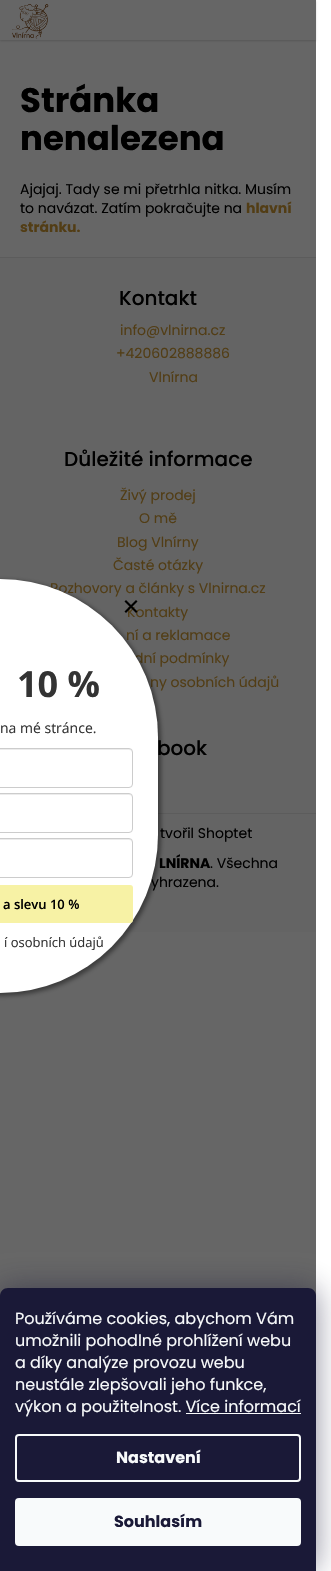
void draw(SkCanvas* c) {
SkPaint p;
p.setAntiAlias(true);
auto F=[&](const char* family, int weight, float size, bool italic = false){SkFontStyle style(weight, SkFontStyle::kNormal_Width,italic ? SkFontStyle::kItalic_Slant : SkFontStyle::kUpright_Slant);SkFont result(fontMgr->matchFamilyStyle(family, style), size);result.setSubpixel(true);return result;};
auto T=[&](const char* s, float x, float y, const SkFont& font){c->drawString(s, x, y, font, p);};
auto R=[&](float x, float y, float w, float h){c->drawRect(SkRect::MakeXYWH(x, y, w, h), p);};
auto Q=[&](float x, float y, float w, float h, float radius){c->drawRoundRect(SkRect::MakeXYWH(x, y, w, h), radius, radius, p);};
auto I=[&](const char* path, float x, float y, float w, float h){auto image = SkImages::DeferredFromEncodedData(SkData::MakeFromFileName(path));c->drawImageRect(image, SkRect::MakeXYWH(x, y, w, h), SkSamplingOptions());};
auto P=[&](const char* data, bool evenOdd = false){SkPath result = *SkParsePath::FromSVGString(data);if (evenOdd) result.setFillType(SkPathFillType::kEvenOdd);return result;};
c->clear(0xffffffff);
p.setColor(0x29000000);
p.setMaskFilter(SkMaskFilter::MakeBlur(kNormal_SkBlurStyle, 1));
c->drawRect(SkRect::MakeXYWH(0,1,316,40),p);
p.setMaskFilter(nullptr);
p.setColor(0xffffffff);
R(0,0,316,40);
I("1.png",12,4,37,35);
auto f1 = F("Poppins",700,34);
p.setColor(0xff000000);
T("Stránka",20,112,f1);
T("nenalezena",20,150,f1);
auto f2 = F("Poppins",400,14);
T("Ajajaj. Tady se mi přetrhla nitka. Musím",20,194,f2);
T("to navázat. Zatím pokračujte na",20,213,f2);
auto f3 = F("Poppins",700,14);
p.setColor(0xffcd9934);
T("hlavní",246,213,f3);
T("stránku.",20,232,f3);
p.setColor(0xfff9f9f9);
R(0,258,316,674);
p.setColor(0xffe6e6e6);
R(0,257,316,1);
auto f4 = F("Poppins",500,20);
p.setColor(0xff000000);
T("Kontakt",119,305,f4);
p.setColor(0xffcd9934);
T("info@vlnirna.cz",120,335,f2);
T("+420602888886",116,358,f2);
T("Vlnírna",149,382,f2);
p.setColor(0xff000000);
T("Důležité informace",64,466,f4);
p.setColor(0xffcd9934);
T("Živý prodej",120,500,f2);
T("O mě",139,523,f2);
T("Blog Vlnírny",117,547,f2);
T("Časté otázky",113,570,f2);
T("Rozhovory a články s Vlnirna.cz",50,593,f2);
T("Kontakty",127,617,f2);
T("ní a reklamace",126,640,f2);
T("dní podmínky",134,663,f2);
T("ny osobních údajů",150,687,f2);
p.setColor(0xff000000);
T("book",157,755,f4);
p.setColor(0xffe6e6e6);
R(158,813,158,1);
p.setColor(0xff000000);
T("tvořil Shoptet",160,838,f2);
T("LNÍRNA",159,868,f3);
T(". Všechna",210,868,f2);
T("yhrazena.",151,887,f2);
p.setColor(0x99000000);
R(0,0,316,1296);
p.setColor(0x69000000);
p.setMaskFilter(SkMaskFilter::MakeBlur(kNormal_SkBlurStyle, 2));
c->drawRoundRect(SkRect::MakeXYWH(-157,580,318,416),159,159,p);
p.setMaskFilter(nullptr);
p.setColor(0xffffffff);
Q(-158,579,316,414,158);
p.setColor(0xff000000);
c->drawPath(P("M136 600l1.5 1.5l-11.5 11.5l-1.5-1.5z"),p);
c->drawPath(P("M124.5 601.5l1.5-1.5l11.5 11.5l-1.5 1.5z"),p);
auto f5 = F("Open Sans",700,36);
p.setColor(0xff333333);
T("10 %",17,697,f5);
auto f6 = F("Open Sans",400,14);
T("na mé stránce.",0,733,f6);
p.setColor(0xffececec);
c->drawPath(P("M-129 750h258c2 0 3 1 3 3v-1c0-2-1-3-3-3h-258c-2 0-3 1-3 3v1c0-2 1-3 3-3z"),p);
p.setStroke(true);
p.setStrokeWidth(1);
p.setColor(0xffcccccc);
c->drawRoundRect(SkRect::MakeXYWH(-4.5,748.5,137,39),3.5,3.5,p);
p.setStroke(false);
p.setColor(0xffececec);
c->drawPath(P("M-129 795h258c2 0 3 1 3 3v-1c0-2-1-3-3-3h-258c-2 0-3 1-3 3v1c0-2 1-3 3-3z"),p);
p.setStroke(true);
p.setColor(0xffcccccc);
c->drawRoundRect(SkRect::MakeXYWH(-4.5,793.5,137,39),3.5,3.5,p);
p.setStroke(false);
p.setColor(0xffececec);
c->drawPath(P("M-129 840h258c2 0 3 1 3 3v-1c0-2-1-3-3-3h-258c-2 0-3 1-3 3v1c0-2 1-3 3-3z"),p);
p.setStroke(true);
p.setColor(0xffcccccc);
c->drawRoundRect(SkRect::MakeXYWH(-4.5,838.5,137,39),3.5,3.5,p);
p.setStroke(false);
p.setColor(0xfff7f2a5);
Q(-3,885,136,38,3);
auto f7 = F("Open Sans",600,13);
p.setColor(0xff000000);
T("a slevu 10 %",3,909,f7);
auto f8 = F("Open Sans",400,13);
p.setColor(0xff333333);
T("í osobních údajů",4,947,f8);
p.setColor(0x801b1939);
p.setMaskFilter(SkMaskFilter::MakeBlur(kNormal_SkBlurStyle, 15));
c->drawRoundRect(SkRect::MakeXYWH(0,1288,316,283),8,8,p);
p.setMaskFilter(nullptr);
p.setColor(0xff1a1937);
c->drawPath(P("M8 1288h300c4.5 0 8 3.5 8 8v275h-316v-275c0-4.5 3.5-8 8-8z"),p);
auto f9 = F("Poppins",400,16);
p.setColor(0xfff8fafb);
T("Používáme cookies, abychom Vám",15,1324,f9);
T("umožnili pohodlné prohlížení webu",15,1346,f9);
T("a díky analýze provozu webu",15,1368,f9);
T("neustále zlepšovali jeho funkce,",15,1390,f9);
T("výkon a použitelnost. Více informací",15,1412,f9);
R(186,1413,115,1);
p.setStroke(true);
p.setStrokeWidth(2);
c->drawRoundRect(SkRect::MakeXYWH(16,1435,284,46),3,3,p);
auto f10 = F("Poppins",700,16);
p.setStroke(false);
T("Nastavení",116,1463,f10);
Q(15,1498,286,48,4);
p.setColor(0xff1a1937);
T("Souhlasím",114,1527,f10);
}
